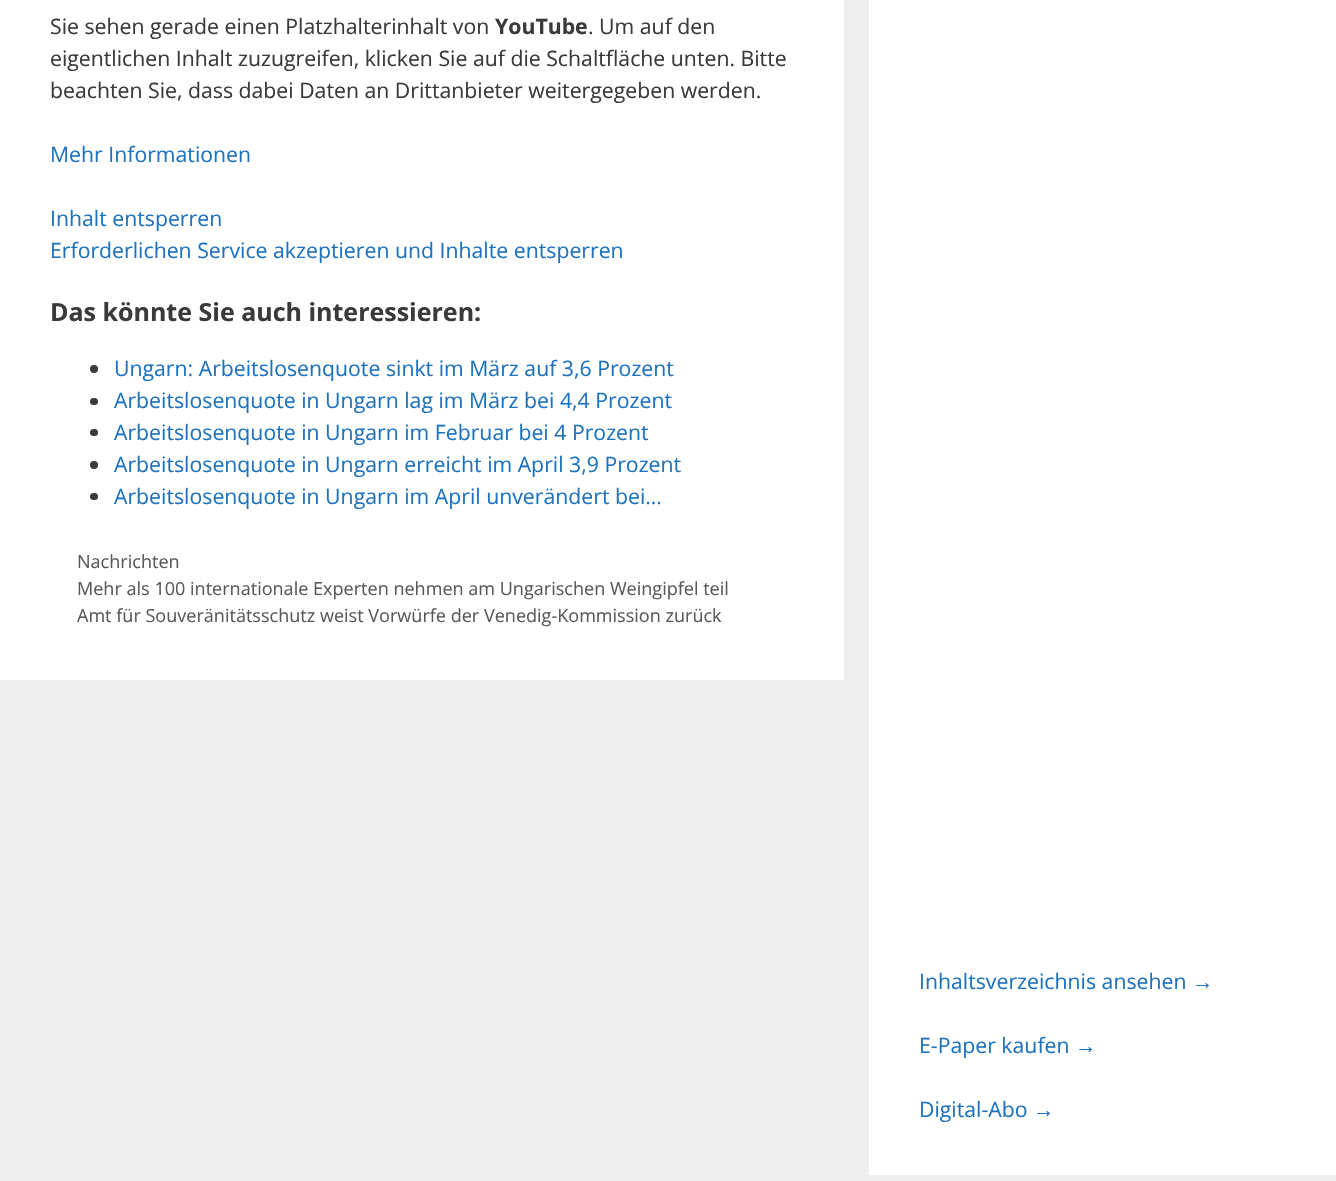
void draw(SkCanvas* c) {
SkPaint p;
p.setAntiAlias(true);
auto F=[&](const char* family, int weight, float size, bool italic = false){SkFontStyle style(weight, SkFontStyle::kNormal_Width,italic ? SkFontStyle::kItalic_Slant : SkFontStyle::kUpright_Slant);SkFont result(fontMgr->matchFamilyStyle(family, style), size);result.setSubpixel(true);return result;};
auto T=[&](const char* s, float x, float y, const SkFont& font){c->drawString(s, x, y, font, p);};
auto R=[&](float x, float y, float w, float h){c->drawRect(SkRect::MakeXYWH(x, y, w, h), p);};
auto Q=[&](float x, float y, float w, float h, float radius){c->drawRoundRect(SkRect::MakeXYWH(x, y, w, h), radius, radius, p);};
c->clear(0xffefefef);
p.setColor(0xffffffff);
R(0,0,844,680);
auto f1 = F("Open Sans",400,21.25);
p.setColor(0xff3a3a3a);
T("Sie sehen gerade einen Platzhalterinhalt von",50,34,f1);
auto f2 = F("Open Sans",700,21.25);
T("YouTube",495,34,f2);
T(". Um auf den",588,34,f1);
T("eigentlichen Inhalt zuzugreifen, klicken Sie auf die Schaltfläche unten. Bitte",50,66,f1);
T("beachten Sie, dass dabei Daten an Drittanbieter weitergegeben werden.",50,98,f1);
p.setColor(0xff1e73be);
T("Mehr Informationen",50,162,f1);
T("Inhalt entsperren",50,226,f1);
T("Erforderlichen Service akzeptieren und Inhalte entsperren",50,258,f1);
auto f3 = F("Open Sans",700,25);
p.setColor(0xff3a3a3a);
T("Das könnte Sie auch interessieren:",50,321,f3);
c->drawCircle(94,369,4,p);
p.setColor(0xff1e73be);
T("Ungarn: Arbeitslosenquote sinkt im März auf 3,6 Prozent",114,376,f1);
p.setColor(0xff3a3a3a);
Q(90,398,8,7,3.5);
p.setColor(0xff1e73be);
T("Arbeitslosenquote in Ungarn lag im März bei 4,4 Prozent",114,408,f1);
p.setColor(0xff3a3a3a);
Q(90,429,8,7,3.5);
p.setColor(0xff1e73be);
T("Arbeitslosenquote in Ungarn im Februar bei 4 Prozent",114,440,f1);
p.setColor(0xff3a3a3a);
c->drawCircle(94,465,4,p);
p.setColor(0xff1e73be);
T("Arbeitslosenquote in Ungarn erreicht im April 3,9 Prozent",114,472,f1);
p.setColor(0xff3a3a3a);
Q(90,493,8,7,3.5);
p.setColor(0xff1e73be);
T("Arbeitslosenquote in Ungarn im April unverändert bei…",114,504,f1);
auto f4 = F("Open Sans",400,18.05);
p.setColor(0xff595959);
T("Nachrichten",77,568,f4);
T("Mehr als 100 internationale Experten nehmen am Ungarischen Weingipfel teil",77,595,f4);
T("Amt für Souveränitätsschutz weist Vorwürfe der Venedig-Kommission zurück",77,622,f4);
p.setColor(0xffffffff);
R(869,0,467,1175);
p.setColor(0xff1e73be);
T("Inhaltsverzeichnis ansehen",919,989,f1);
auto f5 = F("Liberation Serif",400,21.25);
T("→",1192,989,f5);
T("E-Paper kaufen",919,1053,f1);
T("→",1075,1053,f5);
T("Digital-Abo",919,1117,f1);
T("→",1033,1117,f5);
}
